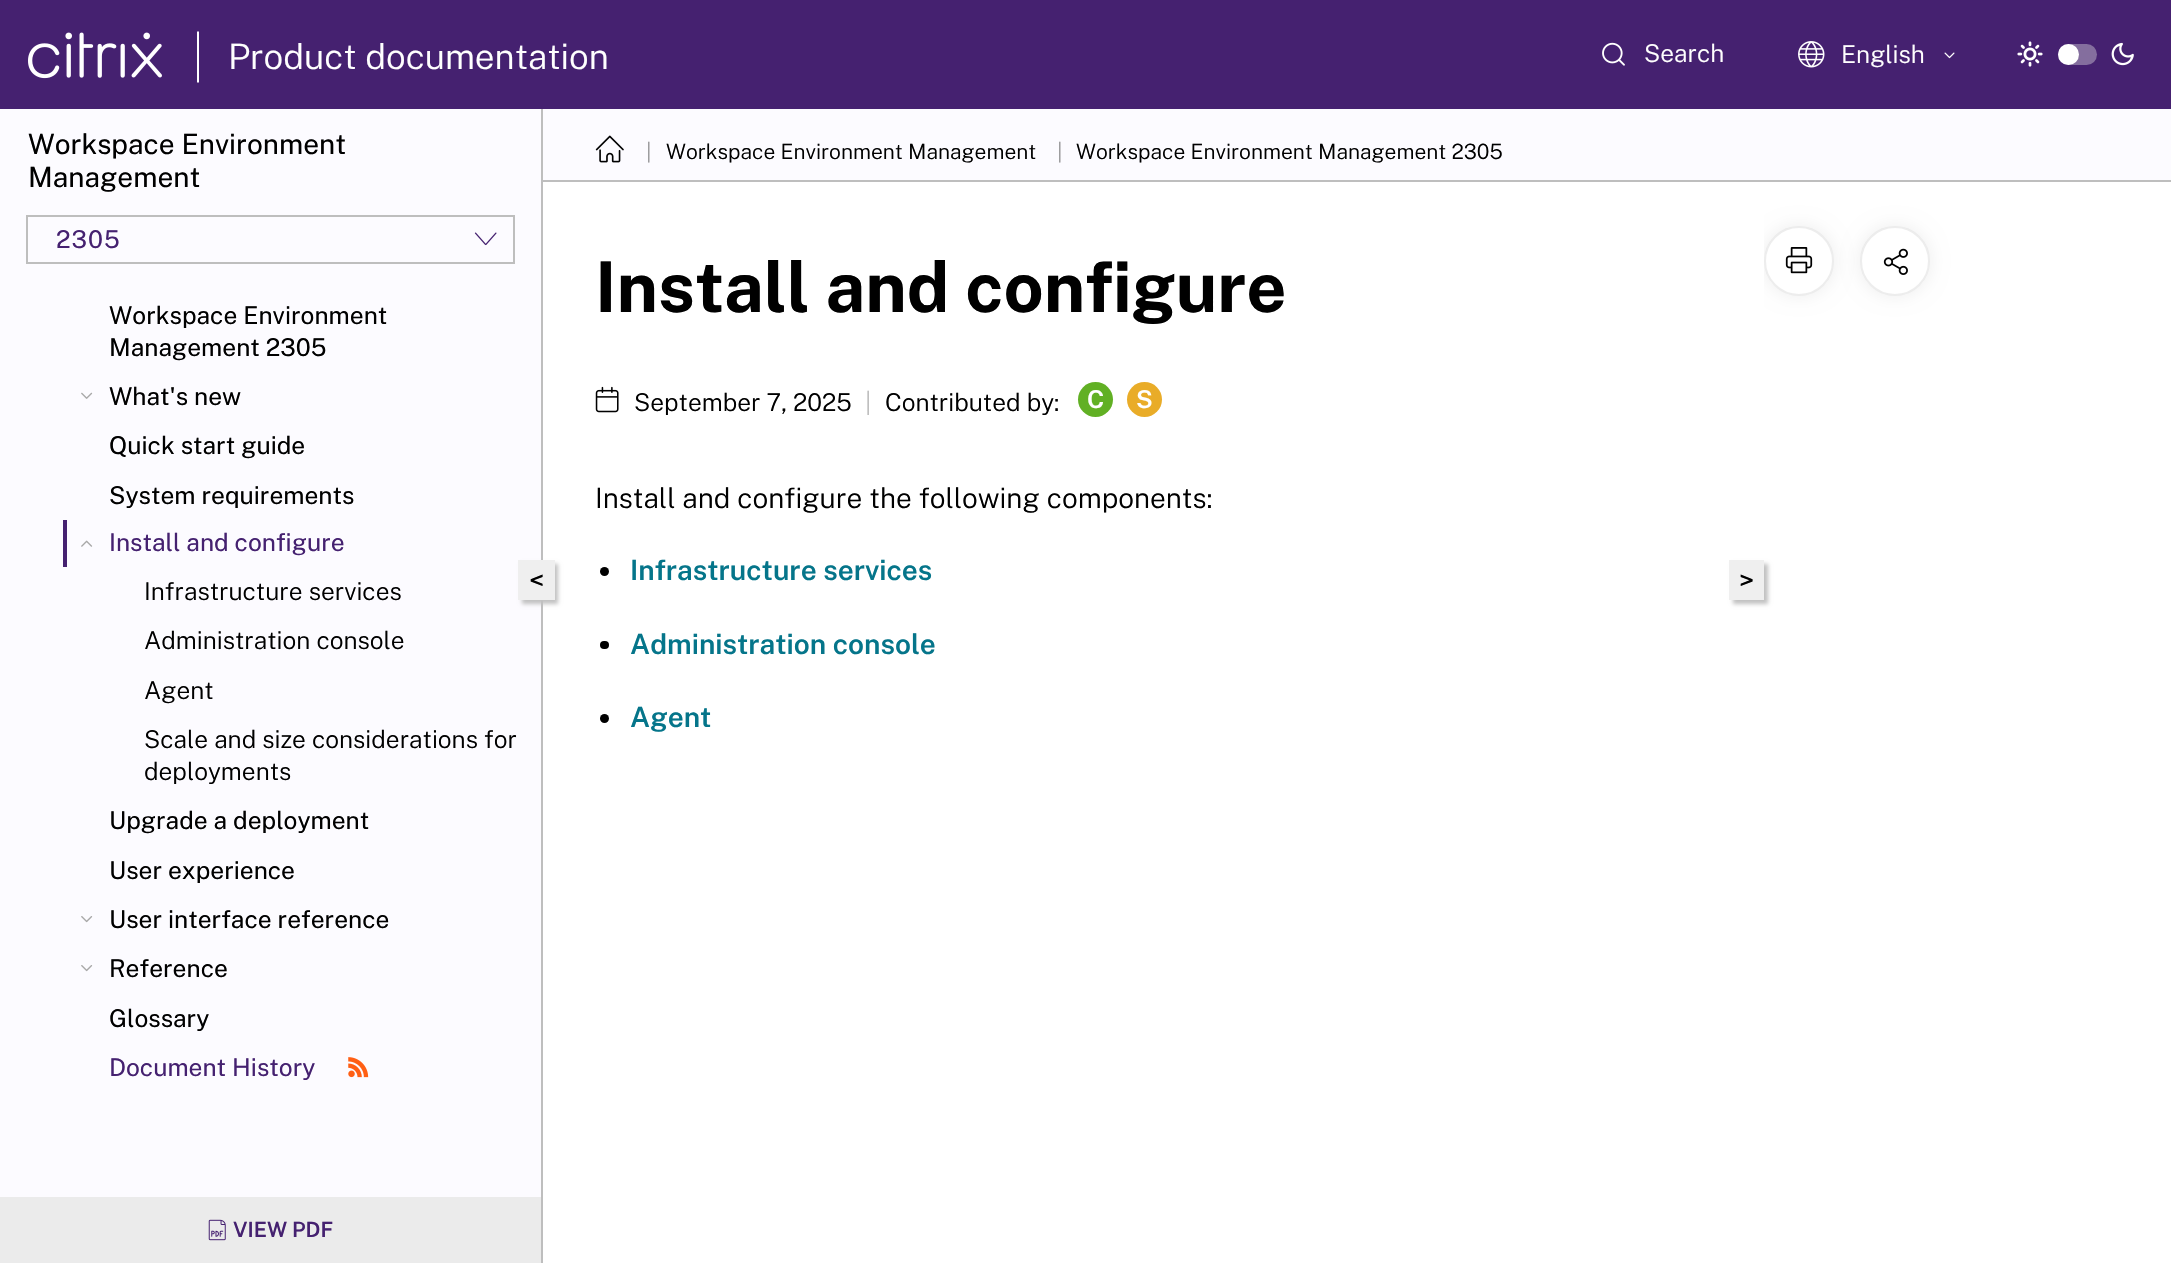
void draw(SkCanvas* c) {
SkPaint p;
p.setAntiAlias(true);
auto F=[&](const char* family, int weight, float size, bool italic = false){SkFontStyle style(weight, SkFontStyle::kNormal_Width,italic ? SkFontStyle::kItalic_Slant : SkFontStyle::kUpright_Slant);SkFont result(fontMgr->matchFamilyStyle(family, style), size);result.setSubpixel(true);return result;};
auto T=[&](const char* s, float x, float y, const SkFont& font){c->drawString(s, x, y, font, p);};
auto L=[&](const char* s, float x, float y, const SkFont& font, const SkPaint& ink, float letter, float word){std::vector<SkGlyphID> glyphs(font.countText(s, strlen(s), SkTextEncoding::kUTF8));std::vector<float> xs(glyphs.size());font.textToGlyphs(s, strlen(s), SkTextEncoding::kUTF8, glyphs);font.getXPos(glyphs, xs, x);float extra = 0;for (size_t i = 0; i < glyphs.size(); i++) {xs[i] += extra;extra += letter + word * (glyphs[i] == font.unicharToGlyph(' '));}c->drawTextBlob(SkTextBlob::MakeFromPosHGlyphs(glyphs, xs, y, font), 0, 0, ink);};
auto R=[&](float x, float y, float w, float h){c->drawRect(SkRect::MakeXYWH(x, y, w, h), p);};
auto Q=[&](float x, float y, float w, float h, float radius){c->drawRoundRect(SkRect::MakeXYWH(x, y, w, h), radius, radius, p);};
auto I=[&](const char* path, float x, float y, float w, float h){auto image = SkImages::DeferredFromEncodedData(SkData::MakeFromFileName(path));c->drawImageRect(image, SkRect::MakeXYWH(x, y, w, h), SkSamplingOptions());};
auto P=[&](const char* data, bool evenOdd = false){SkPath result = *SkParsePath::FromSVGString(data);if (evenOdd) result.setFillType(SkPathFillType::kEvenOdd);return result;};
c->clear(0xffffffff);
p.setColor(0xff452170);
R(0,0,2171,109);
I("1.png",28,32,134,47);
p.setColor(0xffffffff);
c->drawPath(P("M198 31l-1 1v50l1 1l1-1v-50z"),p);
auto f1 = F("Public Sans",300,35);
T("Product documentation",228,69,f1);
I("2.png",1602,42,23,24);
auto f2 = F("Public Sans",300,24.5);
T("Search",1644,62,f2);
I("3.png",1798,41,27,27);
T("English",1841,63,f2);
I("4.png",1944,52,11,7);
I("5.png",2017,41,26,26);
p.setColor(0xff846e9e);
Q(2058,44,39,21,10.5);
p.setColor(0xffffffff);
c->drawCircle(2068.5,54.5,10.5,p);
I("6.png",2111,42,23,24);
p.setColor(0xfffcfbff);
R(0,109,541,1088);
p.setColor(0xffbebebe);
R(541,109,2,1154);
auto f3 = F("Public Sans",400,28);
p.setColor(0xff000000);
T("Workspace Environment",28,154,f3);
T("Management",28,187,f3);
p.setStroke(true);
p.setStrokeWidth(2);
p.setColor(0xffbebebe);
c->drawRect(SkRect::MakeXYWH(27,216,487,47),p);
auto f4 = F("Public Sans",400,24.5);
p.setStroke(false);
p.setColor(0xff452170);
L("2305",56,248,f4,p,1,0);
I("7.png",474,232,23,14);
p.setColor(0xff000000);
T("Workspace Environment",109,324,f4);
T("Management 2305",109,356,f4);
I("8.png",81,392,12,7);
T("What's new",109,405,f4);
T("Quick start guide",109,454,f4);
T("System requirements",109,504,f4);
p.setColor(0xff452170);
R(63,520,4,47);
I("9.png",81,540,12,7);
T("Install and configure",109,551,f4);
p.setColor(0xff000000);
T("Infrastructure services",144,600,f2);
T("Administration console",144,649,f2);
T("Agent",144,699,f2);
T("Scale and size considerations for",144,748,f2);
T("deployments",144,780,f2);
T("Upgrade a deployment",109,829,f4);
T("User experience",109,879,f4);
I("10.png",81,916,12,7);
T("User interface reference",109,928,f4);
I("10.png",81,965,12,7);
T("Reference",109,977,f4);
T("Glossary",109,1027,f4);
p.setColor(0xff452170);
T("Document History",109,1076,f4);
I("11.png",348,1057,21,21);
p.setColor(0xffebebeb);
R(0,1197,541,66);
I("12.png",208,1219,18,22);
auto f5 = F("Public Sans",600,21);
p.setColor(0xff452170);
T("VIEW PDF",233,1237,f5);
p.setColor(0xfffcfbff);
R(543,109,1628,71);
p.setColor(0xffbebebe);
R(543,180,1628,2);
I("13.png",595,135,29,28);
auto f6 = F("Public Sans",300,21);
p.setColor(0xff979799);
T("|",646,159,f6);
p.setColor(0xff000000);
T("Workspace Environment Management",666,159,f6);
p.setColor(0xff979799);
T("|",1057,159,f6);
p.setColor(0xff000000);
T("Workspace Environment Management 2305",1076,159,f6);
p.setColor(0xffc1c1c1);
p.setMaskFilter(SkMaskFilter::MakeBlur(kNormal_SkBlurStyle, 2));
c->drawRect(SkRect::MakeXYWH(522,564,36,40),p);
p.setMaskFilter(nullptr);
p.setColor(0xffefefef);
R(518,560,37,40);
p.setColor(0xff000000);
T("<",529,590,f3);
auto f7 = F("Public Sans",700,70);
T("Install and configure",595,312,f7);
I("14.png",595,386,24,27);
T("September 7, 2025",634,411,f2);
p.setColor(0xffbebebe);
T("|",865,411,f2);
p.setColor(0xff000000);
T("Contributed by:",885,411,f2);
p.setColor(0xff61b024);
c->drawCircle(1095.5,399.5,17.5,p);
auto f8 = F("Public Sans",600,24.5);
p.setColor(0xffffffff);
T("C",1087,408,f8);
p.setColor(0xffe9ac28);
c->drawCircle(1144.5,399.5,17.5,p);
p.setColor(0xffffffff);
T("S",1136,408,f8);
auto f9 = F("Public Sans",300,28);
p.setColor(0xff000000);
T("Install and configure the following components:",595,508,f9);
c->drawCircle(604.5,571.5,4.5,p);
auto f10 = F("Public Sans",600,28);
p.setColor(0xff05758a);
T("Infrastructure services",630,580,f10);
p.setColor(0xff000000);
Q(600,641,9,8,4);
p.setColor(0xff05758a);
T("Administration console",630,654,f10);
p.setColor(0xff000000);
c->drawCircle(604.5,718.5,4.5,p);
p.setColor(0xff05758a);
T("Agent",630,727,f10);
c->save();
c->clipRect(SkRect::MakeXYWH(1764,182,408,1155));
p.setColor(0x12000000);
p.setMaskFilter(SkMaskFilter::MakeBlur(kNormal_SkBlurStyle, 9));
c->drawRoundRect(SkRect::MakeXYWH(1764,226,70,70),35,35,p);
p.setMaskFilter(nullptr);
c->restore();
p.setColor(0xffffffff);
c->drawCircle(1799,261,35,p);
p.setStroke(true);
p.setColor(0x12000000);
c->drawCircle(1799,261,34,p);
I("15.png",1785,247,28,27);
p.setStroke(false);
p.setMaskFilter(SkMaskFilter::MakeBlur(kNormal_SkBlurStyle, 9));
c->drawRoundRect(SkRect::MakeXYWH(1860,226,70,70),35,35,p);
p.setMaskFilter(nullptr);
p.setColor(0xffffffff);
c->drawCircle(1895,261,35,p);
p.setStroke(true);
p.setColor(0x12000000);
c->drawCircle(1895,261,34,p);
I("16.png",1883,248,25,27);
p.setStroke(false);
p.setColor(0xffc1c1c1);
p.setMaskFilter(SkMaskFilter::MakeBlur(kNormal_SkBlurStyle, 2));
c->drawRect(SkRect::MakeXYWH(1733,564,35,40),p);
p.setMaskFilter(nullptr);
p.setColor(0xffefefef);
R(1729,560,35,40);
p.setColor(0xff000000);
T(">",1739,590,f3);
}
